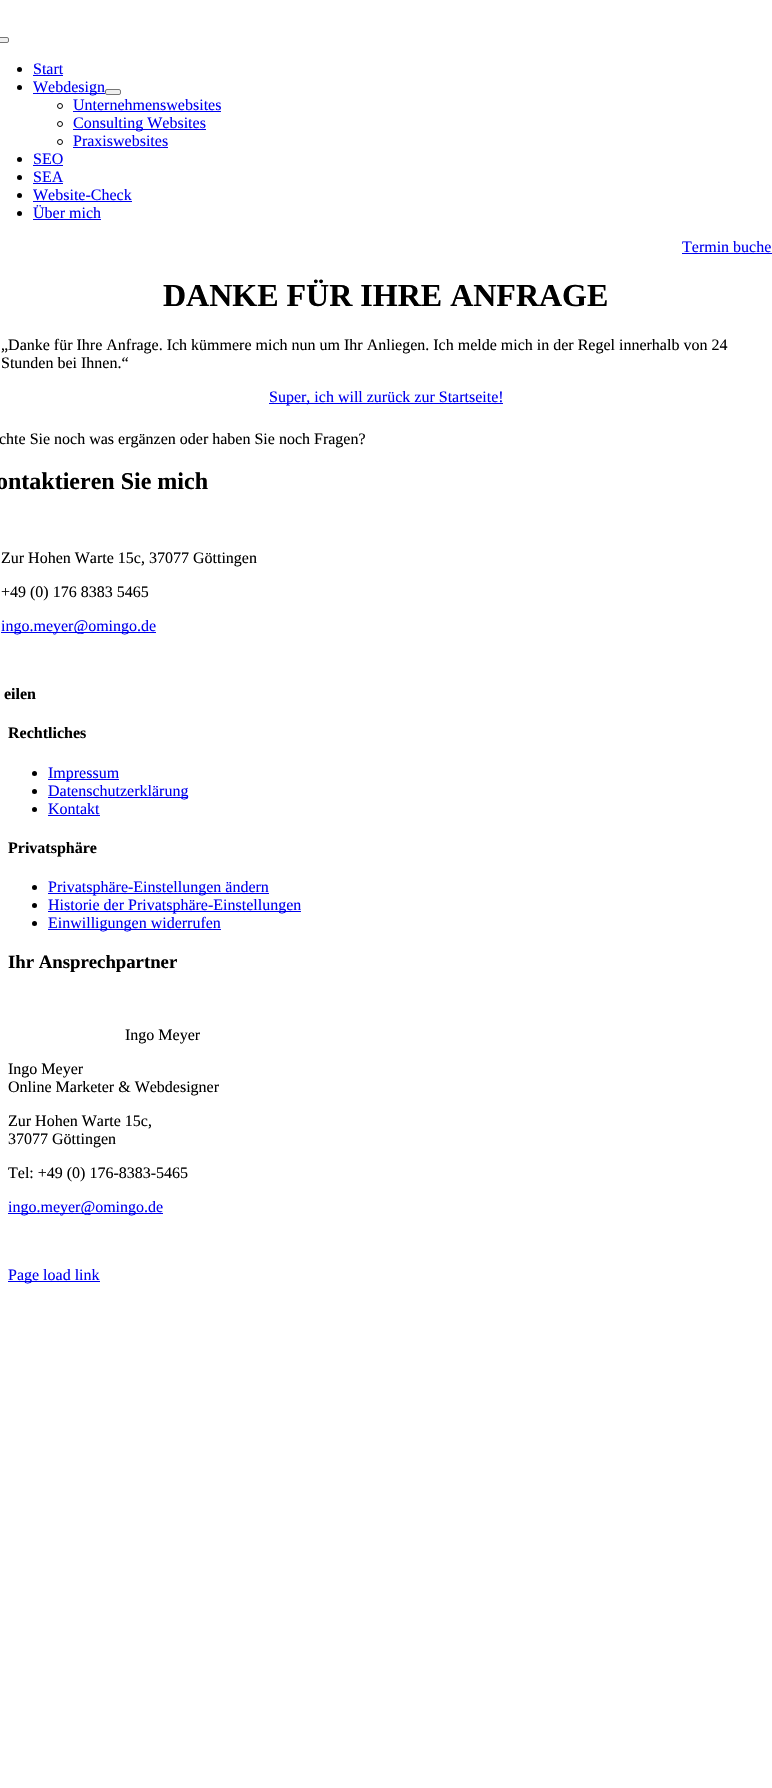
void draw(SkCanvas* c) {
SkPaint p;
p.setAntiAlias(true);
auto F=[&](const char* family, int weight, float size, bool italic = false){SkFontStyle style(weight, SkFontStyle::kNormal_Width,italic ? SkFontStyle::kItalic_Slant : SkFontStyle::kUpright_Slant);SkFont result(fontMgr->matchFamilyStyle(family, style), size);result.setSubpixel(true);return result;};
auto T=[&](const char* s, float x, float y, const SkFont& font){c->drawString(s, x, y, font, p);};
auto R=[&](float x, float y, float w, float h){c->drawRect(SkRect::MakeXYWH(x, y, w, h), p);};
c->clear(0xffffffff);
p.setColor(0xffefefef);
c->drawRoundRect(SkRect::MakeXYWH(-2.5,37.5,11,5),1.5,1.5,p);
p.setStroke(true);
p.setStrokeWidth(1);
p.setColor(0xff767676);
c->drawRoundRect(SkRect::MakeXYWH(-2.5,37.5,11,5),1.5,1.5,p);
p.setStroke(false);
p.setColor(0xff000000);
c->drawCircle(19.5,69.5,2.5,p);
auto f1 = F("Liberation Serif",400,16);
p.setColor(0xff0000ee);
T("Start",33,74,f1);
R(33,75,30,1);
p.setColor(0xff000000);
c->drawCircle(19.5,87.5,2.5,p);
p.setColor(0xff0000ee);
R(33,93,72,1);
T("Webdesign",33,92,f1);
p.setColor(0xffefefef);
c->drawRoundRect(SkRect::MakeXYWH(105.5,89.5,15,5),1.5,1.5,p);
p.setStroke(true);
p.setColor(0xff767676);
c->drawRoundRect(SkRect::MakeXYWH(105.5,89.5,15,5),1.5,1.5,p);
p.setColor(0xff000000);
c->drawCircle(60,106,2.5,p);
p.setStroke(false);
p.setColor(0xff0000ee);
T("Unternehmenswebsites",73,110,f1);
R(73,111,148,1);
p.setStroke(true);
p.setColor(0xff000000);
c->drawCircle(60,124,2.5,p);
p.setStroke(false);
p.setColor(0xff0000ee);
R(73,129,133,1);
T("Consulting Websites",73,128,f1);
p.setStroke(true);
p.setColor(0xff000000);
c->drawCircle(60,142,2.5,p);
p.setStroke(false);
p.setColor(0xff0000ee);
T("Praxiswebsites",73,146,f1);
R(73,147,95,1);
p.setColor(0xff000000);
c->drawCircle(19.5,159.5,2.5,p);
p.setColor(0xff0000ee);
T("SEO",33,164,f1);
R(33,165,30,1);
p.setColor(0xff000000);
c->drawCircle(19.5,177.5,2.5,p);
p.setColor(0xff0000ee);
T("SEA",33,182,f1);
R(33,183,30,1);
p.setColor(0xff000000);
c->drawCircle(19.5,195.5,2.5,p);
p.setColor(0xff0000ee);
T("Website-Check",33,200,f1);
R(33,201,99,1);
p.setColor(0xff000000);
c->drawCircle(19.5,213.5,2.5,p);
p.setColor(0xff0000ee);
T("Über mich",33,218,f1);
R(33,219,68,1);
T("Termin buche",682,252,f1);
R(682,253,90,1);
auto f2 = F("Liberation Serif",700,32);
p.setColor(0xff000000);
T("DANKE FÜR IHRE ANFRAGE",163,306,f2);
T("„Danke für Ihre Anfrage. Ich kümmere mich nun um Ihr Anliegen. Ich melde mich in der Regel innerhalb von 24",1,350,f1);
T("Stunden bei Ihnen.“",1,368,f1);
p.setColor(0xff0000ee);
R(269,403,234,1);
T("Super, ich will zurück zur Startseite!",269,402,f1);
p.setColor(0xff000000);
T("chte Sie noch was ergänzen oder haben Sie noch Fragen?",-1,444,f1);
auto f3 = F("Liberation Serif",700,24);
T("ontaktieren Sie mich",-4,489,f3);
T("Zur Hohen Warte 15c, 37077 Göttingen",1,563,f1);
T("+49 (0) 176 8383 5465",1,597,f1);
p.setColor(0xff0000ee);
R(1,632,155,1);
T("ingo.meyer@omingo.de",1,631,f1);
auto f4 = F("Liberation Serif",700,16);
p.setColor(0xff000000);
T("eilen",4,699,f4);
T("Rechtliches",8,738,f4);
c->drawCircle(34.5,773.5,2.5,p);
p.setColor(0xff0000ee);
R(48,779,71,1);
T("Impressum",48,778,f1);
p.setColor(0xff000000);
c->drawCircle(34.5,791.5,2.5,p);
p.setColor(0xff0000ee);
R(48,797,140,1);
T("Datenschutzerklärung",48,796,f1);
p.setColor(0xff000000);
c->drawCircle(34.5,809.5,2.5,p);
p.setColor(0xff0000ee);
T("Kontakt",48,814,f1);
R(48,815,52,1);
p.setColor(0xff000000);
T("Privatsphäre",8,853,f4);
c->drawCircle(34.5,887.5,2.5,p);
p.setColor(0xff0000ee);
R(48,893,221,1);
T("Privatsphäre-Einstellungen ändern",48,892,f1);
p.setColor(0xff000000);
c->drawCircle(34.5,905.5,2.5,p);
p.setColor(0xff0000ee);
R(48,911,253,1);
T("Historie der Privatsphäre-Einstellungen",48,910,f1);
p.setColor(0xff000000);
c->drawCircle(34.5,923.5,2.5,p);
p.setColor(0xff0000ee);
R(48,929,173,1);
T("Einwilligungen widerrufen",48,928,f1);
auto f5 = F("Liberation Serif",700,18.75);
p.setColor(0xff000000);
T("Ihr Ansprechpartner",8,968,f5);
T("Ingo Meyer",125,1040,f1);
T("Ingo Meyer",8,1074,f1);
T("Online Marketer & Webdesigner",8,1092,f1);
T("Zur Hohen Warte 15c,",8,1126,f1);
T("37077 Göttingen",8,1144,f1);
T("Tel: +49 (0) 176-8383-5465",8,1178,f1);
p.setColor(0xff0000ee);
R(8,1213,155,1);
T("ingo.meyer@omingo.de",8,1212,f1);
R(8,1281,92,1);
T("Page load link",8,1280,f1);
}
